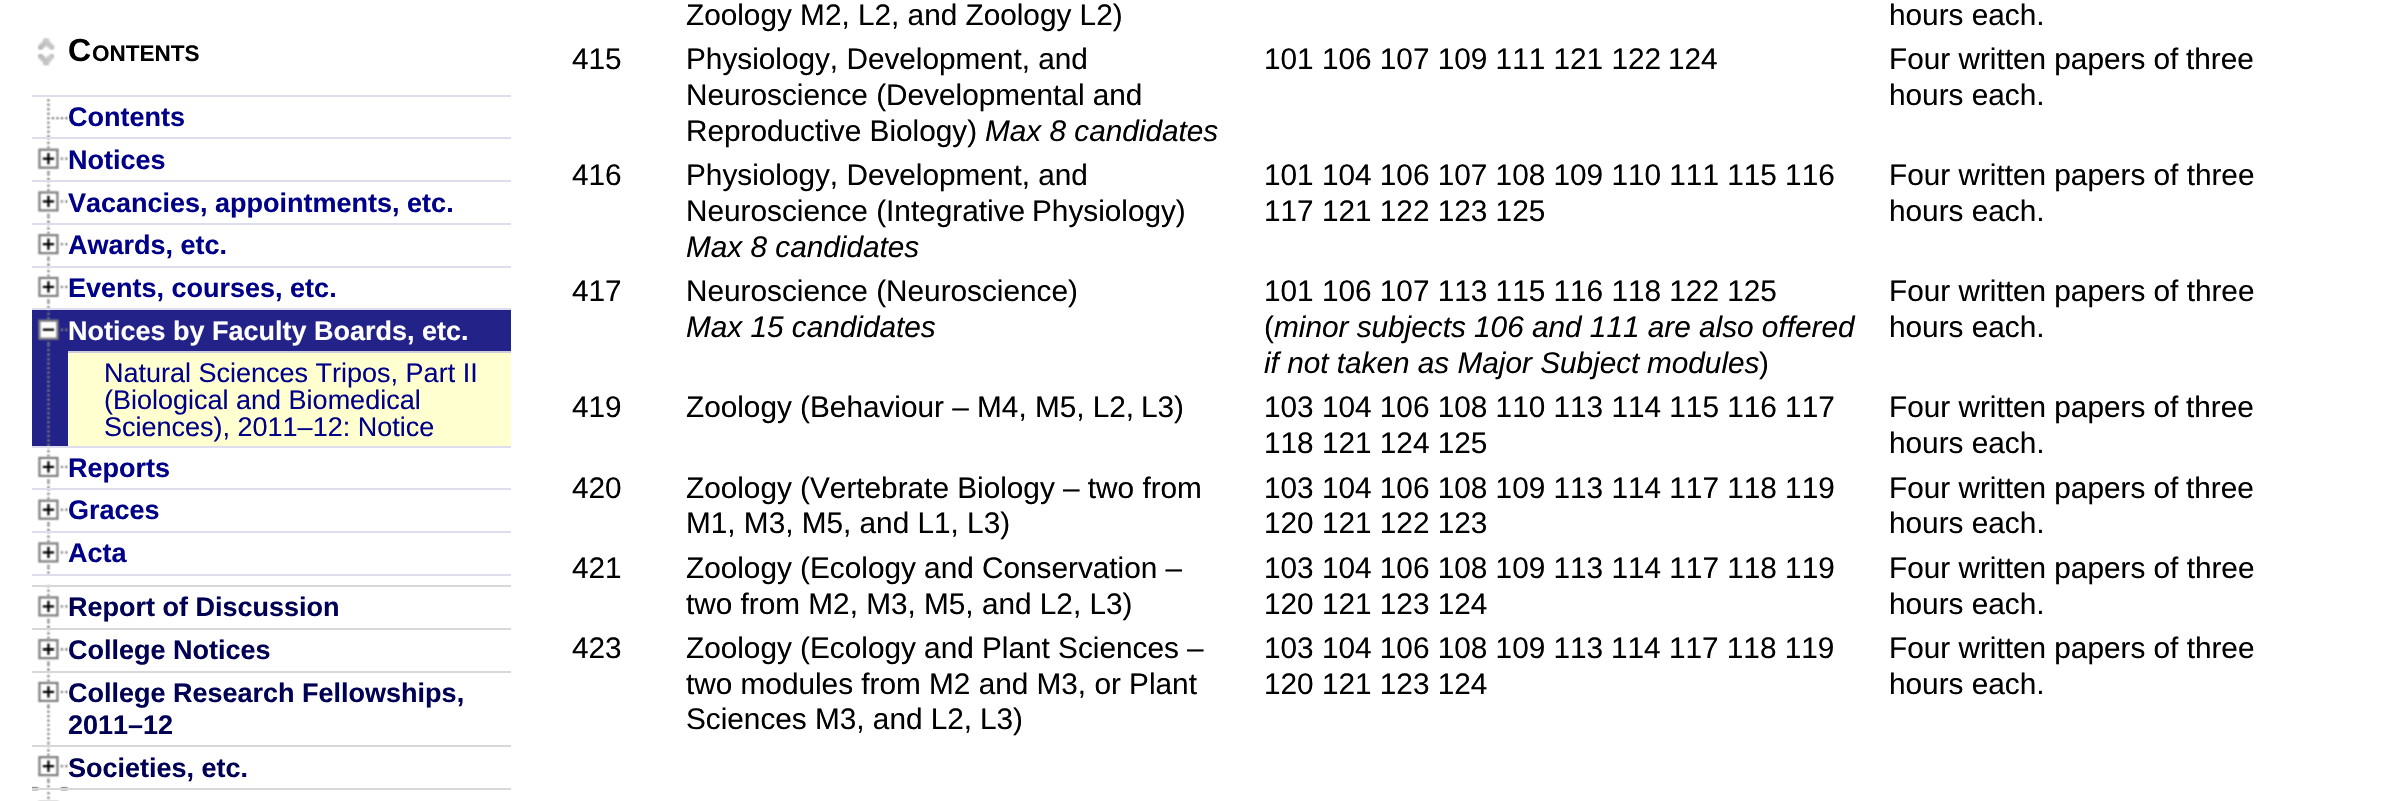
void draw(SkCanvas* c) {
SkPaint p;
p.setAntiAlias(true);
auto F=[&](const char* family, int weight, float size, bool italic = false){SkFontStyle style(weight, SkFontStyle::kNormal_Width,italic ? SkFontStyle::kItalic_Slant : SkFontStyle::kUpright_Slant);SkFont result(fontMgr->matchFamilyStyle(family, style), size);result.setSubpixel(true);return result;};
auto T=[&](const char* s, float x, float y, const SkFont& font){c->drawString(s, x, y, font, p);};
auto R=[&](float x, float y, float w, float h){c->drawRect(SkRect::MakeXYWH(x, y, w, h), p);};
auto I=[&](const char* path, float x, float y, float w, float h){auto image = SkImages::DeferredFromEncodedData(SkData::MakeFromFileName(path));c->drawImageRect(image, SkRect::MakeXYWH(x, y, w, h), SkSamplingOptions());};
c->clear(0xffffffff);
I("1.png",37,37,19,30);
auto f1 = F("Liberation Sans",700,32);
p.setColor(0xff000000);
T("C",68,61,f1);
auto f2 = F("Liberation Sans",700,22.5);
T("ONTENTS",92,61,f2);
I("2.png",46,98,22,39);
p.setColor(0xffddddee);
R(32,95,479,2);
auto f3 = F("Liberation Sans",700,27);
p.setColor(0xff000088);
T("Contents",68,126,f3);
I("3.png",46,139,5,41);
p.setColor(0xffddddee);
R(32,137,479,2);
I("4.png",37,147,31,27);
p.setColor(0xff000088);
T("Notices",68,169,f3);
I("5.png",46,179,5,44);
p.setColor(0xffddddee);
R(32,180,479,2);
I("6.png",37,190,31,27);
p.setColor(0xff000088);
T("Vacancies, appointments, etc.",68,212,f3);
I("7.png",46,222,5,44);
p.setColor(0xffddddee);
R(32,223,479,2);
I("8.png",37,233,31,27);
p.setColor(0xff000088);
T("Awards, etc.",68,254,f3);
I("9.png",46,265,5,43);
p.setColor(0xffddddee);
R(32,266,479,2);
I("10.png",37,275,31,28);
p.setColor(0xff000088);
T("Events, courses, etc.",68,297,f3);
p.setColor(0xff222288);
R(32,310,479,136);
I("11.png",46,310,5,136);
p.setColor(0xffddddee);
R(32,308,479,2);
I("12.png",37,318,31,27);
p.setColor(0xffffffff);
T("Notices by Faculty Boards, etc.",68,340,f3);
p.setColor(0xffffffd0);
R(68,353,443,93);
p.setColor(0xffccccdd);
R(68,351,443,2);
auto f4 = F("Liberation Sans",400,27);
p.setColor(0xff000088);
T("Natural Sciences Tripos, Part II",104,382,f4);
T("(Biological and Biomedical",104,409,f4);
T("Sciences), 2011–12: Notice",104,436,f4);
I("13.png",46,445,5,43);
p.setColor(0xffddddee);
R(32,446,479,2);
I("10.png",37,455,31,28);
p.setColor(0xff000088);
T("Reports",68,477,f3);
I("3.png",46,490,5,41);
p.setColor(0xffddddee);
R(32,488,479,2);
I("4.png",37,498,31,27);
p.setColor(0xff000088);
T("Graces",68,519,f3);
I("14.png",46,530,5,44);
p.setColor(0xffddddee);
R(32,531,479,2);
R(32,574,479,2);
I("15.png",37,541,31,27);
p.setColor(0xff000088);
T("Acta",68,562,f3);
I("16.png",46,584,5,44);
p.setColor(0xffd8d8d8);
R(32,585,479,2);
I("6.png",37,595,31,27);
p.setColor(0xff000055);
T("Report of Discussion",68,616,f3);
I("7.png",46,627,5,44);
p.setColor(0xffd8d8d8);
R(32,628,479,2);
I("17.png",37,638,31,27);
p.setColor(0xff000055);
T("College Notices",68,659,f3);
I("18.png",46,670,5,75);
p.setColor(0xffd8d8d8);
R(32,671,479,2);
I("19.png",37,680,31,28);
p.setColor(0xff000055);
T("College Research Fellowships,",68,702,f3);
T("2011–12",68,734,f3);
I("20.png",46,744,5,44);
p.setColor(0xffd8d8d8);
R(32,745,479,2);
I("8.png",37,755,31,27);
p.setColor(0xff000055);
T("Societies, etc.",68,777,f3);
I("21.png",32,786,37,15);
p.setColor(0xffd8d8d8);
R(32,788,479,2);
auto f5 = F("Liberation Sans",400,29.75);
p.setColor(0xff000000);
T("Zoology M2, L2, and Zoology L2)",686,25,f5);
T("hours each.",1889,25,f5);
T("415",572,69,f5);
T("Physiology, Development, and",686,69,f5);
T("Neuroscience (Developmental and",686,105,f5);
T("Reproductive Biology)",686,141,f5);
auto f6 = F("Liberation Sans",400,29.75,true);
T("Max 8 candidates",985,141,f6);
T("101 106 107 109 111 121 122",1264,69,f5);
T("124",1668,69,f5);
T("Four written papers of",1889,69,f5);
T("three",2186,69,f5);
T("hours each.",1889,105,f5);
T("416",572,185,f5);
T("Physiology, Development, and",686,185,f5);
T("Neuroscience (Integrative",686,221,f5);
T("Physiology)",1032,221,f5);
T("Max 8 candidates",686,257,f6);
T("101 104 106 107 108 109 110 111 115 116",1264,185,f5);
T("117 121 122 123 125",1264,221,f5);
T("Four written papers of three",1889,185,f5);
T("hours each.",1889,221,f5);
T("417",572,301,f5);
T("Neuroscience (Neuroscience)",686,301,f5);
T("Max 15 candidates",686,337,f6);
T("101 106 107 113 115 116 118 122 125",1264,301,f5);
T("(",1264,337,f5);
T("minor subjects 106 and 111 are also offered",1274,337,f6);
T("if not taken as Major Subject",1264,373,f6);
T("modules",1647,373,f6);
T(")",1759,373,f5);
T("Four written papers of three",1889,301,f5);
T("hours each.",1889,337,f5);
T("419",572,417,f5);
T("Zoology (Behaviour – M4, M5, L2,",686,417,f5);
T("L3)",1141,417,f5);
T("103 104 106 108 110 113 114 115 116 117",1264,417,f5);
T("118 121 124 125",1264,453,f5);
T("Four written papers of",1889,417,f5);
T("three",2186,417,f5);
T("hours each.",1889,453,f5);
T("420",572,498,f5);
T("Zoology (Vertebrate Biology – two from",686,498,f5);
T("M1, M3, M5, and L1, L3)",686,533,f5);
T("103 104 106 108 109 113 114 117 118 119",1264,498,f5);
T("120 121 122 123",1264,533,f5);
T("Four written papers of",1889,498,f5);
T("three",2186,498,f5);
T("hours each.",1889,533,f5);
T("421",572,578,f5);
T("Zoology (Ecology and Conservation –",686,578,f5);
T("two from M2, M3, M5, and L2, L3)",686,614,f5);
T("103 104 106 108 109 113 114 117 118 119",1264,578,f5);
T("120 121 123 124",1264,614,f5);
T("Four written papers of three",1889,578,f5);
T("hours each.",1889,614,f5);
T("423",572,658,f5);
T("Zoology (Ecology and Plant Sciences –",686,658,f5);
T("two modules from M2 and M3, or Plant",686,694,f5);
T("Sciences M3, and L2,",686,729,f5);
T("L3)",980,729,f5);
T("103 104 106 108 109 113",1264,658,f5);
T("114 117 118 119",1611,658,f5);
T("120 121 123 124",1264,694,f5);
T("Four written papers of three",1889,658,f5);
T("hours each.",1889,694,f5);
}
